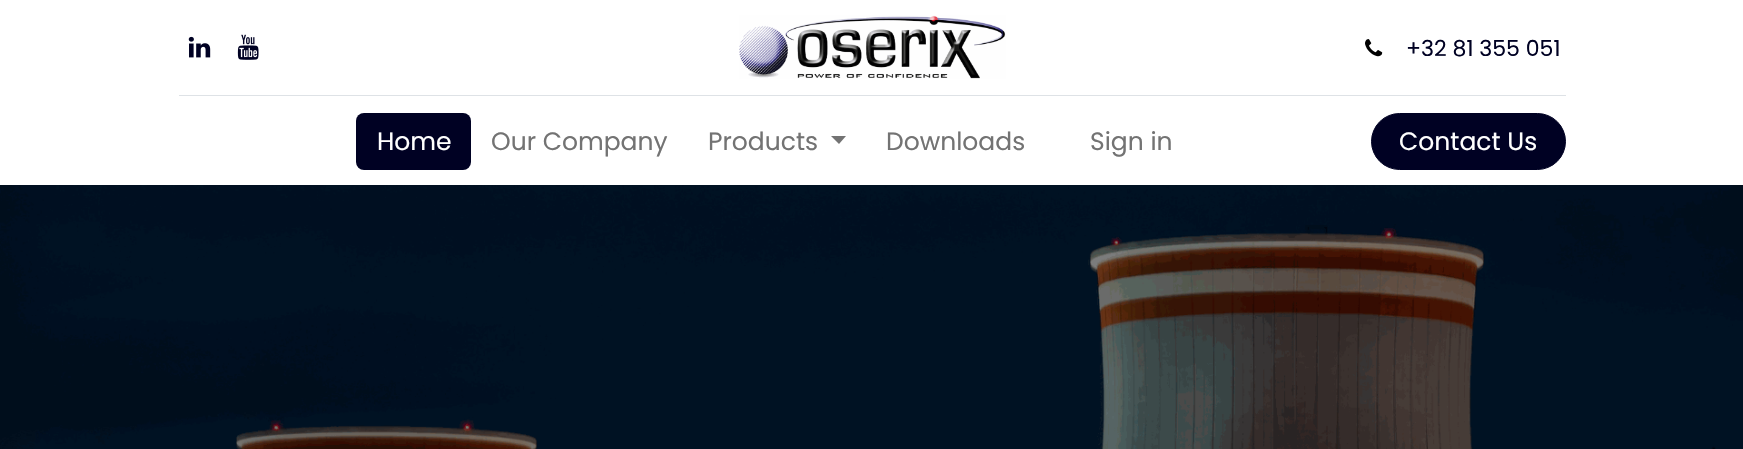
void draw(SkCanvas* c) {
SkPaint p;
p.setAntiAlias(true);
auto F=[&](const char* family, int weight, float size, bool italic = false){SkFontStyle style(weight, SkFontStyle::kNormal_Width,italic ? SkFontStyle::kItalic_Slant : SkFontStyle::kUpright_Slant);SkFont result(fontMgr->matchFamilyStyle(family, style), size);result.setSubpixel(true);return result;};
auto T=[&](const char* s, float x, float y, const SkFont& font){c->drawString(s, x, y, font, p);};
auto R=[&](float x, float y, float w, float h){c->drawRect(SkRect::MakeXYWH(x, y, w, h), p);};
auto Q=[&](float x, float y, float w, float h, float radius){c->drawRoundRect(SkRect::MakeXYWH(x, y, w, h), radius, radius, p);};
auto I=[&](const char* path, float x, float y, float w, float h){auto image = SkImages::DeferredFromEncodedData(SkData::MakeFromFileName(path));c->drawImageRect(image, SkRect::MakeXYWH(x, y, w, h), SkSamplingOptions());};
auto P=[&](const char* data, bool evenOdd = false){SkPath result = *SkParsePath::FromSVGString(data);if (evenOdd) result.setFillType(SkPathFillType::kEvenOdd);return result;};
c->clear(0xffffffff);
I("1.png",188,36,23,22);
I("2.png",237,34,22,26);
I("3.png",739,15,267,64);
I("4.png",1365,39,18,18);
auto f1 = F("Poppins",400,22);
p.setColor(0xff000123);
T("+32 81 355 051",1406,56,f1);
p.setColor(0xffdee2e6);
R(179,95,1387,1);
p.setColor(0xff000123);
Q(356,113,115,57,8);
auto f2 = F("Poppins",400,25);
p.setColor(0xffffffff);
T("Home",377,150,f2);
p.setColor(0xff737373);
T("Our Company",491,150,f2);
T("Products",708,150,f2);
c->drawPath(P("M831 136h15l-7 8z"),p);
T("Downloads",886,150,f2);
T("Sign in",1090,150,f2);
p.setColor(0xff000123);
c->drawRoundRect(SkRect::MakeXYWH(1371.5,113.5,194,56),28,28,p);
p.setStroke(true);
p.setStrokeWidth(1);
c->drawRoundRect(SkRect::MakeXYWH(1371.5,113.5,194,56),28,28,p);
p.setStroke(false);
p.setColor(0xffffffff);
T("Contact Us",1399,150,f2);
I("5.png",0,185,1743,264);
}
